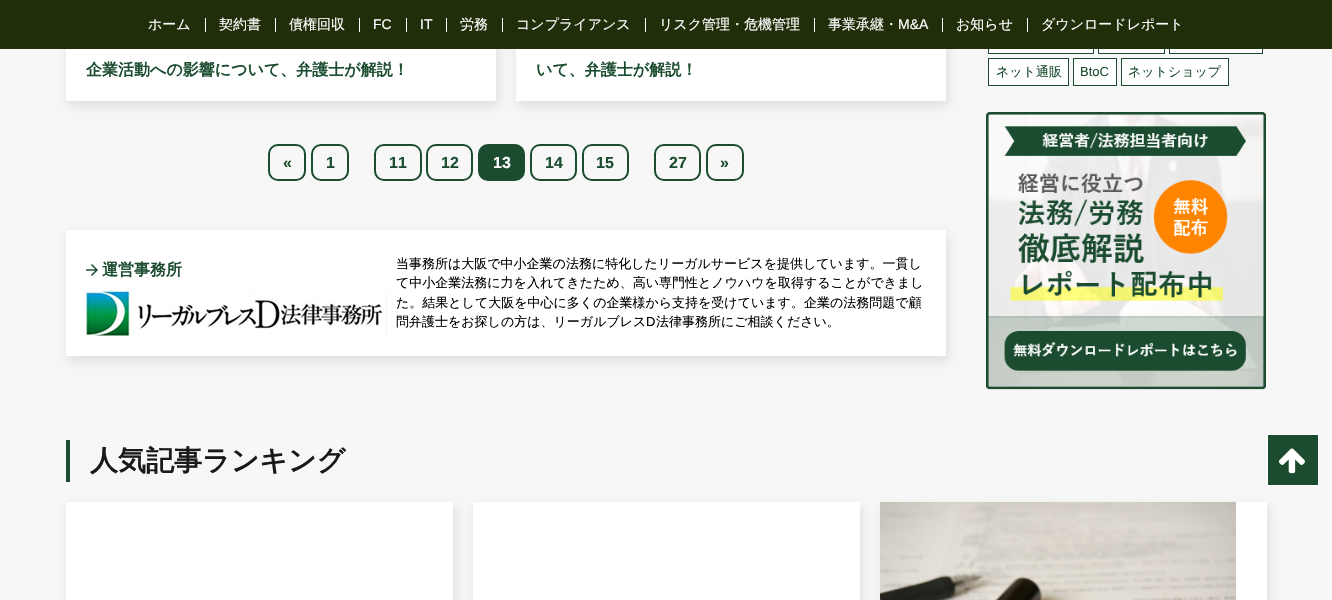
void draw(SkCanvas* c) {
SkPaint p;
p.setAntiAlias(true);
auto F=[&](const char* family, int weight, float size, bool italic = false){SkFontStyle style(weight, SkFontStyle::kNormal_Width,italic ? SkFontStyle::kItalic_Slant : SkFontStyle::kUpright_Slant);SkFont result(fontMgr->matchFamilyStyle(family, style), size);result.setSubpixel(true);return result;};
auto T=[&](const char* s, float x, float y, const SkFont& font){c->drawString(s, x, y, font, p);};
auto R=[&](float x, float y, float w, float h){c->drawRect(SkRect::MakeXYWH(x, y, w, h), p);};
auto I=[&](const char* path, float x, float y, float w, float h){auto image = SkImages::DeferredFromEncodedData(SkData::MakeFromFileName(path));c->drawImageRect(image, SkRect::MakeXYWH(x, y, w, h), SkSamplingOptions());};
c->clear(0xfff7f7f7);
p.setColor(0x1a000000);
p.setMaskFilter(SkMaskFilter::MakeBlur(kNormal_SkBlurStyle, 5));
c->drawRect(SkRect::MakeXYWH(68,-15,430,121),p);
p.setMaskFilter(nullptr);
p.setMaskFilter(SkMaskFilter::MakeBlur(kNormal_SkBlurStyle, 5));
c->drawRect(SkRect::MakeXYWH(518,-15,430,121),p);
p.setMaskFilter(nullptr);
p.setColor(0xffffffff);
R(989,49,104,4);
p.setStroke(true);
p.setStrokeWidth(1);
p.setColor(0xff1b4c2f);
c->drawRect(SkRect::MakeXYWH(988.5,26.5,105,27),p);
p.setStroke(false);
p.setColor(0xffffffff);
R(1099,49,65,4);
p.setStroke(true);
p.setColor(0xff1b4c2f);
c->drawRect(SkRect::MakeXYWH(1098.5,26.5,66,27),p);
p.setStroke(false);
p.setColor(0xffffffff);
R(1170,49,92,4);
p.setStroke(true);
p.setColor(0xff1b4c2f);
c->drawRect(SkRect::MakeXYWH(1169.5,26.5,93,27),p);
p.setStroke(false);
p.setColor(0xff202e0a);
R(0,0,1332,49);
auto f1 = F("WenQuanYi Zen Hei",500,14);
p.setColor(0xffffffff);
T("ホーム",148,29,f1);
R(205,18,1,14);
T("契約書",219,29,f1);
R(275,18,1,14);
T("債権回収",289,29,f1);
R(359,18,1,14);
auto f2 = F("Liberation Sans",400,14);
T("FC",373,29,f2);
R(406,18,1,14);
T("IT",420,29,f2);
R(446,18,1,14);
T("労務",460,29,f1);
R(502,18,1,14);
T("コンプライアンス",516,29,f1);
R(645,18,1,14);
T("リスク管理・危機管理",659,29,f1);
R(814,18,1,14);
T("事業承継・",828,29,f1);
T("M&A",898,29,f2);
R(942,18,1,14);
T("お知らせ",956,29,f1);
R(1027,18,1,14);
T("ダウンロードレポート",1041,29,f1);
R(66,49,430,52);
auto f3 = F("WenQuanYi Zen Hei",700,16);
p.setColor(0xff1b4c2f);
T("企業活動への影響について、弁護士が解説！",86,75,f3);
p.setColor(0xffffffff);
R(516,49,430,52);
p.setColor(0xff1b4c2f);
T("いて、弁護士が解説！",536,75,f3);
p.setStroke(true);
p.setStrokeWidth(2);
c->drawRoundRect(SkRect::MakeXYWH(269,145,36,35),9,9,p);
auto f4 = F("Liberation Sans",700,16);
p.setStroke(false);
T("«",283,168,f4);
p.setStroke(true);
c->drawRoundRect(SkRect::MakeXYWH(312,145,36,35),9,9,p);
p.setStroke(false);
T("1",326,168,f4);
p.setStroke(true);
c->drawRoundRect(SkRect::MakeXYWH(375,145,46,35),9,9,p);
p.setStroke(false);
T("11",389,168,f4);
p.setStroke(true);
c->drawRoundRect(SkRect::MakeXYWH(427,145,45,35),9,9,p);
p.setStroke(false);
T("12",441,168,f4);
c->drawRoundRect(SkRect::MakeXYWH(479,145,45,35),9,9,p);
p.setStroke(true);
c->drawRoundRect(SkRect::MakeXYWH(479,145,45,35),9,9,p);
p.setStroke(false);
p.setColor(0xffffffff);
T("13",493,168,f4);
p.setStroke(true);
p.setColor(0xff1b4c2f);
c->drawRoundRect(SkRect::MakeXYWH(531,145,45,35),9,9,p);
p.setStroke(false);
T("14",545,168,f4);
p.setStroke(true);
c->drawRoundRect(SkRect::MakeXYWH(583,145,45,35),9,9,p);
p.setStroke(false);
T("15",596,168,f4);
p.setStroke(true);
c->drawRoundRect(SkRect::MakeXYWH(655,145,45,35),9,9,p);
p.setStroke(false);
T("27",669,168,f4);
p.setStroke(true);
c->drawRoundRect(SkRect::MakeXYWH(707,145,36,35),9,9,p);
p.setStroke(false);
T("»",720,168,f4);
p.setColor(0x1a000000);
p.setMaskFilter(SkMaskFilter::MakeBlur(kNormal_SkBlurStyle, 5));
c->drawRect(SkRect::MakeXYWH(68,235,880,126),p);
p.setMaskFilter(nullptr);
p.setColor(0xffffffff);
R(66,230,880,126);
I("1.png",86,264,12,12);
p.setColor(0xff1b4c2f);
T("運営事務所",102,275,f3);
I("2.png",86,291,301,45);
auto f5 = F("WenQuanYi Zen Hei",500,13);
p.setColor(0xff000000);
T("当事務所は大阪で中小企業の法務に特化したリーガルサービスを提供しています。一貫し",396,268,f5);
T("て中小企業法務に力を入れてきたため、高い専門性とノウハウを取得することができまし",396,287,f5);
T("た。結果として大阪を中心に多くの企業様から支持を受けています。企業の法務問題で顧",396,307,f5);
T("問弁護士をお探しの方は、リーガルブレス",396,326,f5);
auto f6 = F("Liberation Sans",400,13);
T("D",646,326,f6);
T("法律事務所にご相談ください。",656,326,f5);
p.setColor(0xffffffff);
c->drawRect(SkRect::MakeXYWH(988.5,58.5,80,27),p);
p.setStroke(true);
p.setStrokeWidth(1);
p.setColor(0xff1b4c2f);
c->drawRect(SkRect::MakeXYWH(988.5,58.5,80,27),p);
p.setStroke(false);
T("ネット通販",996,76,f5);
p.setColor(0xffffffff);
c->drawRect(SkRect::MakeXYWH(1073.5,58.5,43,27),p);
p.setStroke(true);
p.setColor(0xff1b4c2f);
c->drawRect(SkRect::MakeXYWH(1073.5,58.5,43,27),p);
p.setStroke(false);
T("BtoC",1080,76,f6);
p.setColor(0xffffffff);
c->drawRect(SkRect::MakeXYWH(1121.5,58.5,107,27),p);
p.setStroke(true);
p.setColor(0xff1b4c2f);
c->drawRect(SkRect::MakeXYWH(1121.5,58.5,107,27),p);
p.setStroke(false);
T("ネットショップ",1128,76,f5);
I("3.png",986,112,280,278);
R(66,440,4,42);
auto f7 = F("WenQuanYi Zen Hei",700,28);
p.setColor(0xff191919);
T("人気記事ランキング",90,470,f7);
p.setColor(0x1a000000);
p.setMaskFilter(SkMaskFilter::MakeBlur(kNormal_SkBlurStyle, 5));
c->drawRect(SkRect::MakeXYWH(68,507,387,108),p);
p.setMaskFilter(nullptr);
p.setColor(0xffffffff);
R(66,502,387,98);
p.setColor(0x1a000000);
p.setMaskFilter(SkMaskFilter::MakeBlur(kNormal_SkBlurStyle, 5));
c->drawRect(SkRect::MakeXYWH(475,507,387,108),p);
p.setMaskFilter(nullptr);
p.setColor(0xffffffff);
R(473,502,387,98);
p.setColor(0x1a000000);
p.setMaskFilter(SkMaskFilter::MakeBlur(kNormal_SkBlurStyle, 5));
c->drawRect(SkRect::MakeXYWH(882,507,387,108),p);
p.setMaskFilter(nullptr);
p.setColor(0xffffffff);
R(1236,502,31,98);
I("4.png",880,502,356,98);
p.setColor(0xff1b4c2f);
c->drawRect(SkRect::MakeXYWH(1267.5,434.5,51,51),p);
p.setStroke(true);
p.setColor(0xffffffff);
c->drawRect(SkRect::MakeXYWH(1267.5,434.5,51,51),p);
I("5.png",1278,448,27,26);
}
